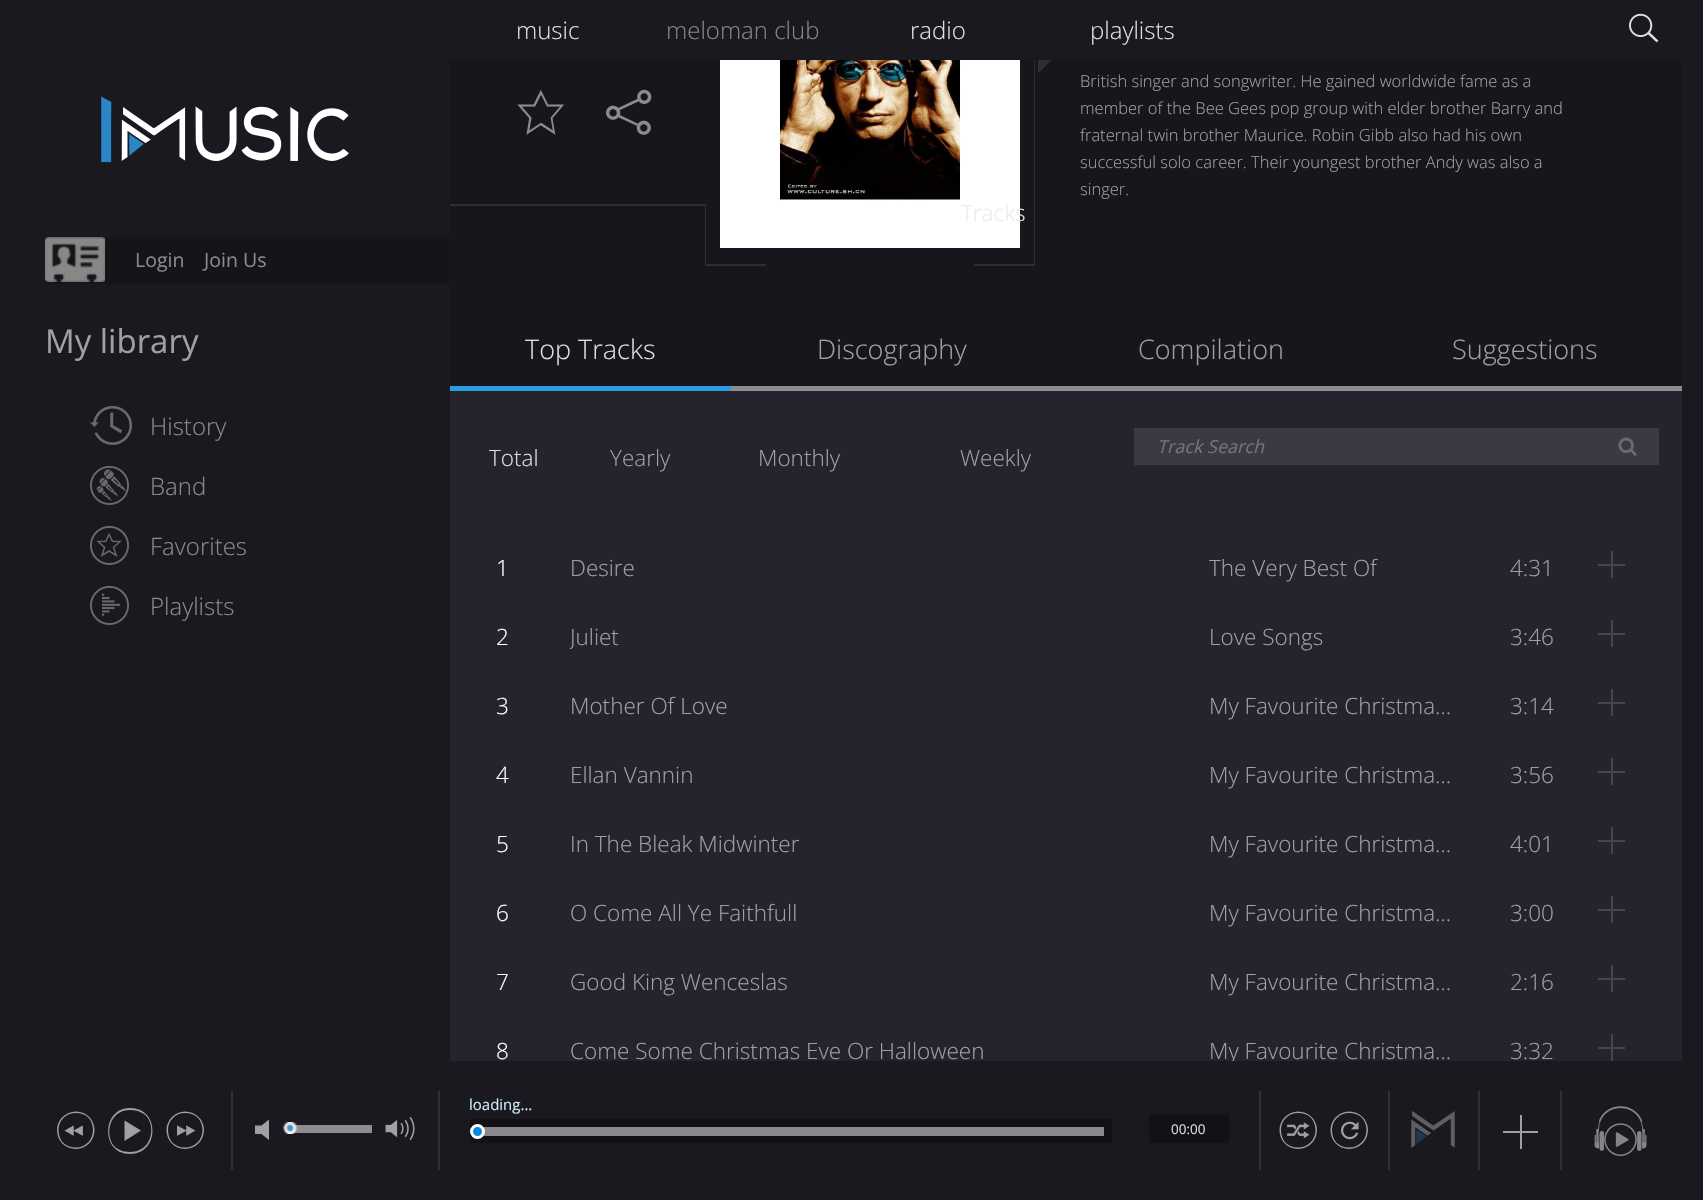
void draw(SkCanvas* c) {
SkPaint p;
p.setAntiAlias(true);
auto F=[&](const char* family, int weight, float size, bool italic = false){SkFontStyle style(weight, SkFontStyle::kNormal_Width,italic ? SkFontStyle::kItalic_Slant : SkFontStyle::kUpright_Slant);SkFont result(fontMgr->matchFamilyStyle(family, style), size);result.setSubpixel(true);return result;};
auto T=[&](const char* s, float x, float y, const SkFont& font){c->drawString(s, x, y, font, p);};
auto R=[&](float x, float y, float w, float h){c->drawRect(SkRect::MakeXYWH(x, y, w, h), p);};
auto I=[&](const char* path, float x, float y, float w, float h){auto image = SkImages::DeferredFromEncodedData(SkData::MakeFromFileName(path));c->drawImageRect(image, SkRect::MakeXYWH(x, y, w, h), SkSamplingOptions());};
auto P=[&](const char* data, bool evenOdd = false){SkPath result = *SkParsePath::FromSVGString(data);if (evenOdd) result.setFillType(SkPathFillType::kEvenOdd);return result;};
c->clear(0xff25232d);
p.setColor(0xff929196);
R(731,390,951,1);
p.setColor(0xff17161c);
R(450,60,1232,326);
p.setColor(0xff2e2d33);
c->drawPath(P("M1035 46v220l-1-2v-218z"),p);
c->drawPath(P("M1038 73.5v-22.5h22.5z"),p);
p.setColor(0xff1a1920);
R(0,0,1703,60);
auto f1 = F("Open Sans",300,24);
p.setColor(0xffdfdfdf);
T("music",516,39,f1);
p.setColor(0xff858585);
T("meloman club",666,39,f1);
p.setColor(0xffdfdfdf);
T("radio",910,39,f1);
T("playlists",1090,39,f1);
I("1.png",1629,13,30,30);
I("10.png",720,60,300,188);
auto f2 = F("Open Sans",300,22.5);
p.setColor(0xffeaeaeb);
T("Tracks",961,221,f2);
p.setColor(0xff1a1920);
R(1682,60,21,1001);
p.setColor(0xff1a191f);
R(0,60,450,1001);
I("2.png",101,96,248,67);
p.setColor(0xff151419);
R(45,237,405,47);
I("3.png",45,237,60,45);
auto f3 = F("Open Sans",400,19.5);
p.setColor(0xff8a8a8c);
T("Login",135,267,f3);
T("Join Us",204,267,f3);
auto f4 = F("Open Sans",400,33);
p.setColor(0xffa0a0a0);
T("My library",45,353,f4);
I("4.png",90,405,42,40);
p.setColor(0xff8a8a8c);
T("History",150,435,f1);
I("5.png",90,465,39,40);
T("Band",150,495,f1);
I("6.png",90,525,39,40);
T("Favorites",150,555,f1);
I("7.png",90,585,39,40);
T("Playlists",150,615,f1);
p.setColor(0xff8b8b8e);
R(731,386,951,4);
I("8.png",517,90,47,45);
I("9.png",606,89,46,46);
p.setColor(0xff2e2d33);
R(450,204,255,2);
p.setColor(0x1affffff);
c->drawPath(P("M1035 266h-61v-2h60z"),p);
p.setColor(0xff2e2d33);
c->drawPath(P("M766 266h-61l1-2h60z"),p);
p.setColor(0x1affffff);
c->drawPath(P("M705 266v-62h1v60z"),p);
auto f5 = F("Open Sans",300,16.5);
p.setColor(0xffa0a0a0);
T("British singer and songwriter. He gained worldwide fame as a",1080,87,f5);
T("member of the Bee Gees pop group with elder brother Barry and",1080,114,f5);
T("fraternal twin brother Maurice. Robin Gibb also had his own",1080,141,f5);
T("successful solo career. Their youngest brother Andy was also a",1080,168,f5);
T("singer.",1080,195,f5);
p.setColor(0xff299ee2);
R(450,386,281,5);
auto f6 = F("Open Sans",300,27);
p.setColor(0xffdfdfdf);
T("Top Tracks",525,359,f6);
p.setColor(0xffa0a0a0);
T("Discography",817,359,f6);
T("Compilation",1138,359,f6);
T("Suggestions",1452,359,f6);
p.setColor(0xff3b3942);
R(1134,428,525,37);
auto f7 = F("Open Sans",400,18,true);
p.setColor(0xff757575);
T("Track Search",1157,453,f7);
I("11.png",1618,437,19,19);
p.setColor(0xffdfdfdf);
T("Total",489,466,f2);
p.setColor(0xffa0a0a0);
T("Yearly",610,466,f2);
T("Monthly",758,466,f2);
T("Weekly",960,466,f2);
p.setColor(0xffffffff);
T("1",496,576,f2);
p.setColor(0xffa0a0a0);
T("Desire",570,576,f2);
T("The Very Best Of",1209,576,f2);
T("4:31",1510,576,f2);
p.setColor(0xff46444c);
R(1598,564,27,2);
R(1611,551,2,27);
p.setColor(0xffffffff);
T("2",496,645,f2);
c->save();
c->clipRect(SkRect::MakeXYWH(570,602,50,69));
p.setColor(0xffa0a0a0);
T("Juliet",570,645,f2);
c->restore();
T("Love Songs",1209,645,f2);
T("3:46",1510,645,f2);
p.setColor(0xff46444c);
R(1598,633,27,2);
R(1611,620,2,27);
p.setColor(0xffffffff);
T("3",496,714,f2);
p.setColor(0xffa0a0a0);
T("Mother Of Love",570,714,f2);
T("My Favourite Christma…",1209,714,f2);
T("3:14",1510,714,f2);
p.setColor(0xff46444c);
R(1598,702,27,2);
R(1611,689,2,27);
p.setColor(0xffffffff);
T("4",496,783,f2);
p.setColor(0xffa0a0a0);
T("Ellan Vannin",570,783,f2);
T("My Favourite Christma…",1209,783,f2);
T("3:56",1510,783,f2);
p.setColor(0xff46444c);
R(1598,771,27,2);
R(1611,758,2,27);
p.setColor(0xffffffff);
T("5",496,852,f2);
p.setColor(0xffa0a0a0);
T("In The Bleak Midwinter",570,852,f2);
T("My Favourite Christma…",1209,852,f2);
T("4:01",1510,852,f2);
p.setColor(0xff46444c);
R(1598,840,27,2);
R(1611,827,2,27);
p.setColor(0xffffffff);
T("6",496,921,f2);
p.setColor(0xffa0a0a0);
T("O Come All Ye Faithfull",570,921,f2);
T("My Favourite Christma…",1209,921,f2);
T("3:00",1510,921,f2);
p.setColor(0xff46444c);
R(1598,909,27,2);
R(1611,896,2,27);
p.setColor(0xffffffff);
T("7",496,990,f2);
p.setColor(0xffa0a0a0);
T("Good King Wenceslas",570,990,f2);
T("My Favourite Christma…",1209,990,f2);
T("2:16",1510,990,f2);
p.setColor(0xff46444c);
R(1598,978,27,2);
R(1611,965,2,27);
p.setColor(0xffffffff);
T("8",496,1059,f2);
p.setColor(0xffa0a0a0);
T("Come Some Christmas Eve Or Halloween",570,1059,f2);
T("My Favourite Christma…",1209,1059,f2);
T("3:32",1510,1059,f2);
p.setColor(0xff46444c);
R(1598,1047,27,2);
R(1611,1034,2,27);
p.setColor(0xff1a1920);
R(0,1061,1703,139);
I("12.png",64,1125,19,11);
p.setColor(0xffa0a0a0);
c->drawPath(P("M76 1111.5c10 0 18.5 8.5 18.5 18.5c0 10.5-8.5 19-18.5 19c-10.5 0-19-8.5-19-19c0-10 8.5-18.5 19-18.5zm0 1.5c10 0 18.5 7.5 18.5 17c0 10.5-8.5 19-18.5 19c-10 0-17.5-8.5-17.5-19c0-9.5 7.5-17 17.5-17z",true),p);
c->drawPath(P("M76 1111.5c10 0 18.5 8.5 18.5 18.5c0 10.5-8.5 19-18.5 19c-10.5 0-19-8.5-19-19c0-10 8.5-18.5 19-18.5zm0 0c9.5 0 17 8.5 17 18.5c0 10-7.5 17.5-17 17.5c-10.5 0-19-7.5-19-17.5c0-10 8.5-18.5 19-18.5z",true),p);
c->drawPath(P("M124.5 1120.5l16.5 10l-16.5 10.5z"),p);
c->drawPath(P("M130 1108c30 0 30 46 0 46c-29 0-29-46 0-46zm0 2c31 0 29 44 0 44c-27 0-28-44 0-44z",true),p);
c->drawPath(P("M130 1108c30 0 30 46 0 46c-29 0-29-46 0-46zm0 0c28 0 29 44 0 44c-30 0-28-44 0-44z",true),p);
I("13.png",177,1125,19,11);
c->drawPath(P("M185 1111.5c10.5 0 19 8.5 19 18.5c0 10.5-8.5 19-19 19c-10 0-18.5-8.5-18.5-19c0-10 8.5-18.5 18.5-18.5zm0 1.5c10.5 0 19 7.5 19 17c0 10.5-8.5 19-19 19c-9.5 0-17-8.5-17-19c0-9.5 7.5-17 17-17z",true),p);
c->drawPath(P("M185 1111.5c10.5 0 19 8.5 19 18.5c0 10.5-8.5 19-19 19c-10 0-18.5-8.5-18.5-19c0-10 8.5-18.5 18.5-18.5zm0 0c10 0 17.5 8.5 17.5 18.5c0 10-7.5 17.5-17.5 17.5c-10 0-18.5-7.5-18.5-17.5c0-10 8.5-18.5 18.5-18.5z",true),p);
p.setColor(0xff313036);
R(231,1091,2,79);
p.setColor(0xffa0a0a0);
c->drawPath(P("M261.5 1125.5l7.5-6v20.5l-7.5-6h-6.5v-8.5z"),p);
p.setColor(0xff8d8c90);
R(290,1125,82,8);
I("14.png",283,1122,15,12);
I("15.png",385,1117,30,24);
p.setColor(0xff313036);
R(438,1091,2,79);
auto f8 = F("Open Sans",400,15);
p.setColor(0xffc9eaf7);
T("loading...",469,1110,f8);
p.setColor(0xff121216);
R(470,1119,642,24);
p.setColor(0xff89898b);
R(483,1127,621,9);
p.setColor(0xff008bdc);
c->drawCircle(477.5,1131.5,6,p);
p.setStroke(true);
p.setStrokeWidth(3);
p.setColor(0xffffffff);
c->drawCircle(477.5,1131.5,6,p);
p.setStroke(false);
p.setColor(0xff121216);
R(1149,1115,80,28);
auto f9 = F("Open Sans",400,13.5);
p.setColor(0xffdfdfdf);
T("00:00",1171,1134,f9);
p.setColor(0xff313036);
R(1259,1091,2,79);
I("16.png",1287,1122,23,17);
p.setColor(0xffa0a0a0);
c->drawPath(P("M1298 1111.5c10.5 0 19 8.5 19 18.5c0 10.5-8.5 19-19 19c-10 0-18.5-8.5-18.5-19c0-10 8.5-18.5 18.5-18.5zm0 1.5c10.5 0 19 7.5 19 17c0 10.5-8.5 19-19 19c-9.5 0-17-8.5-17-19c0-9.5 7.5-17 17-17z",true),p);
c->drawPath(P("M1298 1111.5c10.5 0 19 8.5 19 18.5c0 10.5-8.5 19-19 19c-10 0-18.5-8.5-18.5-19c0-10 8.5-18.5 18.5-18.5zm0 0c10 0 17.5 8.5 17.5 18.5c0 10-7.5 17.5-17.5 17.5c-10 0-18.5-7.5-18.5-17.5c0-10 8.5-18.5 18.5-18.5z",true),p);
I("17.png",1341,1121,18,19);
c->drawPath(P("M1349 1111.5c10.5 0 19 8.5 19 18.5c0 10.5-8.5 19-19 19c-10 0-18.5-8.5-18.5-19c0-10 8.5-18.5 18.5-18.5zm0 1.5c10.5 0 19 7.5 19 17c0 10.5-8.5 19-19 19c-9.5 0-17-8.5-17-19c0-9.5 7.5-17 17-17z",true),p);
c->drawPath(P("M1349 1111.5c10.5 0 19 8.5 19 18.5c0 10.5-8.5 19-19 19c-10 0-18.5-8.5-18.5-19c0-10 8.5-18.5 18.5-18.5zm0 0c10 0 17.5 8.5 17.5 18.5c0 10-7.5 17.5-17.5 17.5c-10 0-18.5-7.5-18.5-17.5c0-10 8.5-18.5 18.5-18.5z",true),p);
p.setColor(0xff313036);
R(1388,1091,2,79);
I("18.png",1411,1111,44,37);
R(1478,1091,2,79);
p.setColor(0xffa0a0a0);
R(1503,1131,35,2);
R(1520,1115,2,34);
p.setColor(0xff313036);
R(1560,1091,2,79);
I("19.png",1594,1106,53,50);
}
